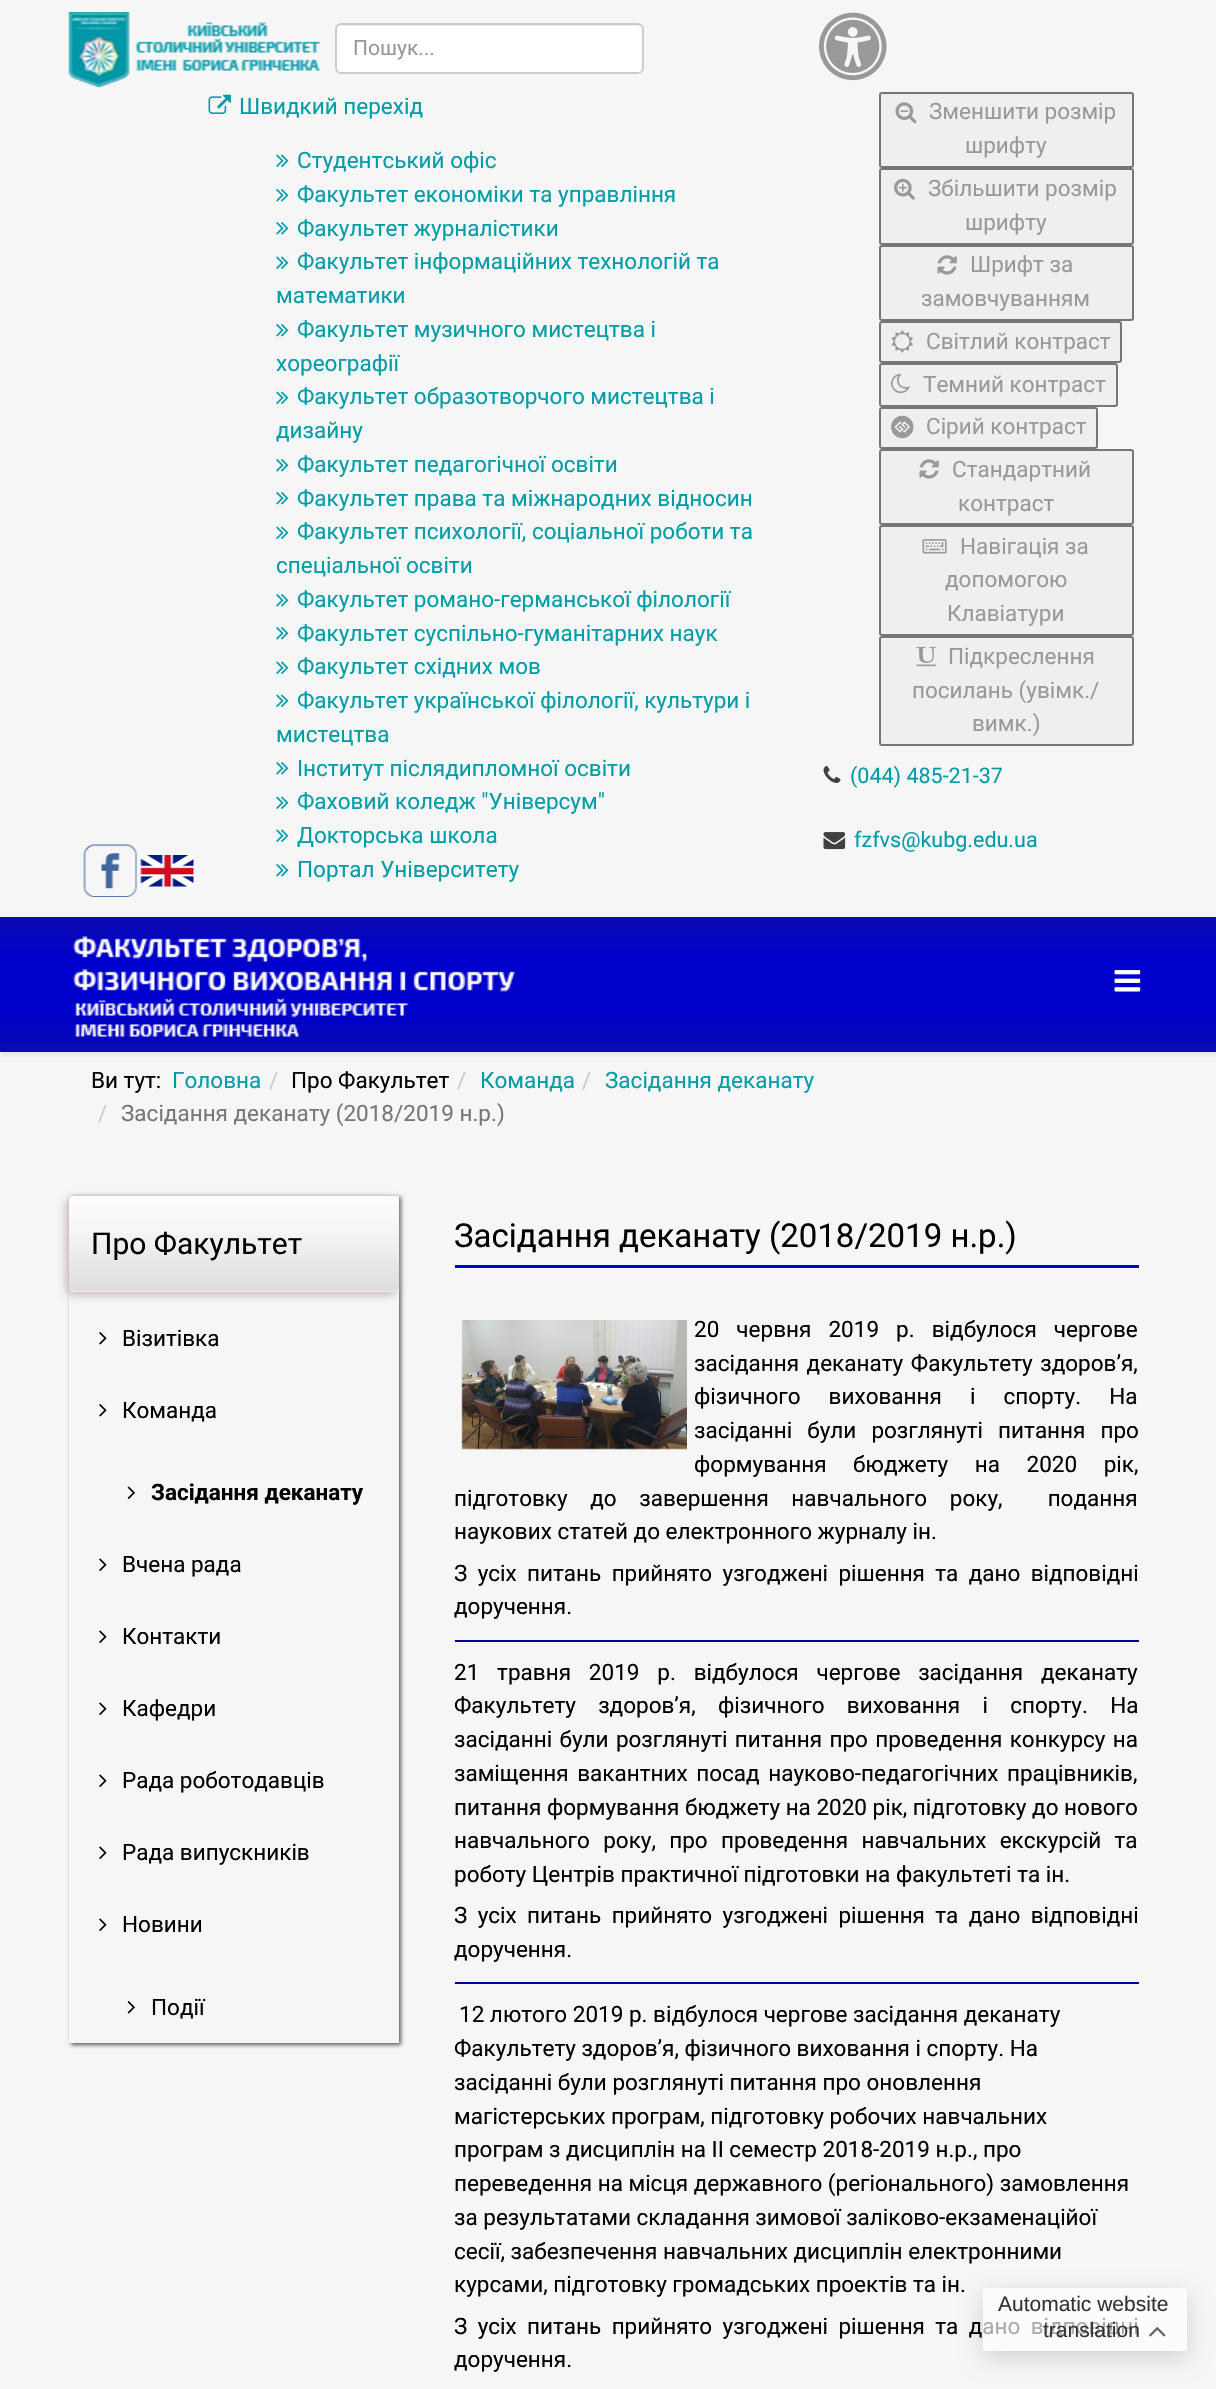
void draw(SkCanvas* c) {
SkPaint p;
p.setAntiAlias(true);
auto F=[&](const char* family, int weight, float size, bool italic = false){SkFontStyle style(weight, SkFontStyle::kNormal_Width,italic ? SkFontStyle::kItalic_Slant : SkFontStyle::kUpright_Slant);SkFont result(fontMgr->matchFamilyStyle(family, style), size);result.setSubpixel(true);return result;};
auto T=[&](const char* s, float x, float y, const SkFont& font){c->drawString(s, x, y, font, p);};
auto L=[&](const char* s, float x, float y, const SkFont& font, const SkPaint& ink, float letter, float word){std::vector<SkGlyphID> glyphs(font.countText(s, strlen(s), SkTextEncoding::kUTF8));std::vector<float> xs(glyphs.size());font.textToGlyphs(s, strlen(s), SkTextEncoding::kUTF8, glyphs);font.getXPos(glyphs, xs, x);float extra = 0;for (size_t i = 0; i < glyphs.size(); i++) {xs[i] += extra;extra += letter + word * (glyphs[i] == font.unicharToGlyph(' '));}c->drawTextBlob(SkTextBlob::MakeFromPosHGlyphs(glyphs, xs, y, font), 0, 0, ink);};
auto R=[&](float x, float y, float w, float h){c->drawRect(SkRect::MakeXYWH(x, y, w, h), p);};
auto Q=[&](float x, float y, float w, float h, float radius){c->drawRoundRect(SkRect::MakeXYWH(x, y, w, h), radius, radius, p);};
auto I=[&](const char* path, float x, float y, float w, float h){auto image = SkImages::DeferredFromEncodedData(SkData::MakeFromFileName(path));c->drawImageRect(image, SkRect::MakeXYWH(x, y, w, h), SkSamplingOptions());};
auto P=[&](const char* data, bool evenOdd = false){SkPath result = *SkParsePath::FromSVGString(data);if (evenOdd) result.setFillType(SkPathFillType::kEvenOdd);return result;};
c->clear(0xfff6f6f6);
I("1.png",68,12,252,75);
p.setColor(0xffffffff);
Q(335,23,309,51,6);
p.setColor(0xffececec);
c->drawPath(P("M340 26h298c2 0 4 2 4 4c0-3-2-6-5-6h-296c-3 0-5 3-5 6c0-2 2-4 4-4z"),p);
p.setStroke(true);
p.setStrokeWidth(2);
p.setColor(0xffcccccc);
c->drawRoundRect(SkRect::MakeXYWH(336,24,307,49),5,5,p);
auto f1 = F("Roboto",400,21);
p.setStroke(false);
p.setColor(0xff999999);
T("Пошук...",353,55,f1);
I("2.png",83,844,54,53);
I("3.png",140,855,54,32);
I("4.png",208,94,23,20);
auto f2 = F("Roboto",400,22.5);
p.setColor(0xff009ca7);
T("Швидкий перехід",239,114,f2);
I("5.png",276,154,13,13);
T("Студентський офіс",297,168,f2);
I("6.png",276,189,13,13);
T("Факультет економіки та управління",297,202,f2);
I("6.png",276,222,13,13);
T("Факультет журналістики",297,236,f2);
I("5.png",276,256,13,13);
T("Факультет інформаційних технологій та",297,269,f2);
T("математики",276,303,f2);
I("6.png",276,324,13,13);
T("Факультет музичного мистецтва і",297,337,f2);
T("хореографії",276,371,f2);
I("5.png",276,391,13,13);
T("Факультет образотворчого мистецтва і",297,404,f2);
T("дизайну",276,438,f2);
I("6.png",276,459,13,13);
T("Факультет педагогічної освіти",297,472,f2);
I("6.png",276,492,13,13);
T("Факультет права та міжнародних відносин",297,506,f2);
I("5.png",276,526,13,13);
T("Факультет психології, соціальної роботи та",297,539,f2);
T("спеціальної освіти",276,573,f2);
I("6.png",276,594,13,13);
T("Факультет романо-германської філології",297,607,f2);
I("6.png",276,627,13,13);
T("Факультет суспільно-гуманітарних наук",297,641,f2);
I("5.png",276,661,13,13);
T("Факультет східних мов",297,674,f2);
I("5.png",276,694,13,13);
T("Факультет української філології, культури і",297,708,f2);
T("мистецтва",276,742,f2);
I("6.png",276,762,13,13);
T("Інститут післядипломної освіти",297,776,f2);
I("5.png",276,796,13,13);
T("Фаховий коледж \"Універсум\"",297,809,f2);
I("5.png",276,829,13,13);
T("Докторська школа",297,843,f2);
I("6.png",276,864,13,13);
T("Портал Університету",297,877,f2);
I("7.png",819,12,68,69);
p.setColor(0xffefefef);
c->drawRoundRect(SkRect::MakeXYWH(880,93,253,74),2,2,p);
p.setStroke(true);
p.setColor(0xff767676);
c->drawRoundRect(SkRect::MakeXYWH(880,93,253,74),2,2,p);
I("8.png",895,102,22,22);
p.setStroke(false);
p.setColor(0xff999999);
T("Зменшити розмір",929,119,f2);
T("шрифту",965,153,f2);
p.setColor(0xffefefef);
c->drawRoundRect(SkRect::MakeXYWH(880,169,253,75),2,2,p);
p.setStroke(true);
p.setColor(0xff767676);
c->drawRoundRect(SkRect::MakeXYWH(880,169,253,75),2,2,p);
I("9.png",894,178,21,22);
p.setStroke(false);
p.setColor(0xff999999);
T("Збільшити розмір",928,196,f2);
T("шрифту",965,230,f2);
p.setColor(0xffefefef);
c->drawRoundRect(SkRect::MakeXYWH(880,246,253,74),2,2,p);
p.setStroke(true);
p.setColor(0xff767676);
c->drawRoundRect(SkRect::MakeXYWH(880,246,253,74),2,2,p);
I("10.png",937,255,20,20);
p.setStroke(false);
p.setColor(0xff999999);
T("Шрифт за",970,272,f2);
T("замовчуванням",921,306,f2);
p.setColor(0xffefefef);
c->drawRoundRect(SkRect::MakeXYWH(880,322,241,40),2,2,p);
p.setStroke(true);
p.setColor(0xff767676);
c->drawRoundRect(SkRect::MakeXYWH(880,322,241,40),2,2,p);
I("11.png",891,330,22,23);
p.setStroke(false);
p.setColor(0xff999999);
T("Світлий контраст",926,349,f2);
p.setColor(0xffefefef);
c->drawRoundRect(SkRect::MakeXYWH(880,364,237,42),2,2,p);
p.setStroke(true);
p.setColor(0xff767676);
c->drawRoundRect(SkRect::MakeXYWH(880,364,237,42),2,2,p);
I("12.png",891,373,19,21);
p.setStroke(false);
p.setColor(0xff999999);
T("Темний контраст",923,392,f2);
p.setColor(0xffefefef);
c->drawRoundRect(SkRect::MakeXYWH(880,408,217,40),2,2,p);
p.setStroke(true);
p.setColor(0xff767676);
c->drawRoundRect(SkRect::MakeXYWH(880,408,217,40),2,2,p);
I("13.png",891,415,23,24);
p.setStroke(false);
p.setColor(0xff999999);
T("Сірий контраст",926,434,f2);
p.setColor(0xffefefef);
c->drawRoundRect(SkRect::MakeXYWH(880,450,253,74),2,2,p);
p.setStroke(true);
p.setColor(0xff767676);
c->drawRoundRect(SkRect::MakeXYWH(880,450,253,74),2,2,p);
I("10.png",919,459,20,20);
p.setStroke(false);
p.setColor(0xff999999);
T("Стандартний",952,477,f2);
T("контраст",958,511,f2);
p.setColor(0xffefefef);
c->drawRoundRect(SkRect::MakeXYWH(880,526,253,109),2,2,p);
p.setStroke(true);
p.setColor(0xff767676);
c->drawRoundRect(SkRect::MakeXYWH(880,526,253,109),2,2,p);
I("14.png",922,539,25,15);
p.setStroke(false);
p.setColor(0xff999999);
T("Навігація за",960,554,f2);
T("допомогою",945,587,f2);
T("Клавіатури",947,621,f2);
p.setColor(0xffefefef);
c->drawRoundRect(SkRect::MakeXYWH(880,637,253,108),2,2,p);
p.setStroke(true);
p.setColor(0xff767676);
c->drawRoundRect(SkRect::MakeXYWH(880,637,253,108),2,2,p);
I("15.png",916,646,20,21);
p.setStroke(false);
p.setColor(0xff999999);
T("Підкреслення",948,664,f2);
T("посилань (увімк./",912,698,f2);
T("вимк.)",972,731,f2);
I("16.png",823,766,18,17);
auto f3 = F("Roboto",400,21.5);
p.setColor(0xff009ca7);
T("(044) 485-21-37",850,783,f3);
I("17.png",823,832,23,18);
T("fzfvs@kubg.edu.ua",854,847,f3);
p.setColor(0x0d000000);
p.setMaskFilter(SkMaskFilter::MakeBlur(kNormal_SkBlurStyle, 2));
c->drawRect(SkRect::MakeXYWH(0,921,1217,135),p);
p.setMaskFilter(nullptr);
{
const SkColor colors[] = {0xff0b0bb1,0xff0000cc,0xff0000cc,0xff0b0bb1};
const float stops[] = {0,.3,.7,1};
const SkPoint ends[] = {{608,917}, {608,1052}};
p.setShader(SkGradientShader::MakeLinear(ends, colors, stops, 4, SkTileMode::kClamp));
p.setAlpha(255);
}
R(0,917,1216,135);
I("18.png",73,935,442,102);
I("19.png",1114,970,27,22);
p.setShader(nullptr);
p.setColor(0xff000000);
T("Ви тут:",91,1088,f2);
p.setColor(0xff009ca7);
T("Головна",172,1088,f2);
p.setColor(0xffcccccc);
T("/",269,1088,f2);
p.setColor(0xff000000);
T("Про Факультет",291,1088,f2);
p.setColor(0xffcccccc);
T("/",457,1088,f2);
p.setColor(0xff009ca7);
T("Команда",480,1088,f2);
p.setColor(0xffcccccc);
T("/",582,1088,f2);
p.setColor(0xff009ca7);
T("Засідання деканату",605,1088,f2);
p.setColor(0xffcccccc);
T("/",98,1121,f2);
p.setColor(0xff777777);
T("Засідання деканату (2018/2019 н.р.)",121,1121,f2);
c->save();
c->clipPath(P("M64 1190h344v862h-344zm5 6h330v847h-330z",true),true);
p.setColor(0xff5d5d5d);
p.setMaskFilter(SkMaskFilter::MakeBlur(kNormal_SkBlurStyle, 2));
c->drawRect(SkRect::MakeXYWH(71,1197,330,848),p);
p.setMaskFilter(nullptr);
c->restore();
c->save();
c->clipPath(P("M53 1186h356v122h-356zm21 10h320c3 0 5 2 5 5v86c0 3-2 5-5 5h-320c-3 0-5-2-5-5v-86c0-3 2-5 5-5z",true),true);
p.setColor(0xffc5b8bf);
p.setMaskFilter(SkMaskFilter::MakeBlur(kNormal_SkBlurStyle, 4));
c->drawRoundRect(SkRect::MakeXYWH(66,1199,330,96),5,5,p);
p.setMaskFilter(nullptr);
c->restore();
{
const SkColor colors[] = {0xa6ffffff,0xb0ffffff,0xfff1f1f1,0xffdeddde,0xffffffff};
const float stops[] = {0,0,.47,.99,1};
const SkPoint ends[] = {{234,1196}, {234,1292}};
p.setShader(SkGradientShader::MakeLinear(ends, colors, stops, 5, SkTileMode::kClamp));
p.setAlpha(255);
}
Q(69,1196,330,96,5);
auto f4 = F("Roboto",400,30);
p.setShader(nullptr);
p.setColor(0xff000000);
T("Про Факультет",91,1254,f4);
I("20.png",99,1332,8,13);
T("Візитівка",122,1346,f2);
I("20.png",99,1404,8,13);
T("Команда",122,1418,f2);
I("21.png",127,1486,8,13);
auto f5 = F("Roboto",700,22.5);
T("Засідання деканату",151,1500,f5);
I("22.png",99,1558,8,13);
T("Вчена рада",122,1572,f2);
I("22.png",99,1630,8,13);
T("Контакти",122,1644,f2);
I("22.png",99,1702,8,13);
T("Кафедри",122,1716,f2);
I("22.png",99,1774,8,13);
T("Рада роботодавців",122,1788,f2);
I("22.png",99,1846,8,13);
T("Рада випускників",122,1860,f2);
I("22.png",99,1918,8,13);
T("Новини",122,1932,f2);
I("23.png",127,2001,8,13);
T("Події",151,2015,f2);
p.setColor(0xff0000cc);
R(455,1265,684,3);
auto f6 = F("Roboto",400,33);
p.setColor(0xff000000);
T("Засідання деканату (2018/2019 н.р.)",454,1247,f6);
L("20 червня 2019 р. відбулося чергове",694,1337,f2,p,0,11.5);
L("засідання деканату Факультету здоров’я,",694,1371,f2,p,0,2);
L("фізичного виховання і спорту. На",694,1404,f2,p,0,22.5);
L("засіданні були розглянуті питання про",694,1438,f2,p,0,9.5);
L("формування бюджету на 2020 рік,",694,1472,f2,p,0,21);
L("підготовку до завершення навчального року,  подання",454,1506,f2,p,0,17);
T("наукових статей до електронного журналу ін.",454,1539,f2);
I("24.png",461,1320,226,130);
L("З усіх питань прийнято узгоджені рішення та дано відповідні",454,1581,f2,p,0,4.75);
T("доручення.",454,1614,f2);
p.setColor(0xff0000a0);
R(455,1640,684,2);
p.setColor(0xff000000);
L("21 травня 2019 р. відбулося чергове засідання деканату",454,1680,f2,p,0,12.25);
L("Факультету здоров’я, фізичного виховання і спорту. На",454,1713,f2,p,0,16.75);
L("засіданні були розглянуті питання про проведення конкурсу на",454,1747,f2,p,0,1.75);
L("заміщення вакантних посад науково-педагогічних працівників,",454,1781,f2,p,0,3);
T("питання формування бюджету на 2020 рік, підготовку до нового",454,1815,f2);
L("навчального року, про проведення навчальних екскурсій та",454,1848,f2,p,0,7.75);
T("роботу Центрів практичної підготовки на факультеті та ін.",454,1882,f2);
L("З усіх питань прийнято узгоджені рішення та дано відповідні",454,1923,f2,p,0,4.75);
T("доручення.",454,1957,f2);
p.setColor(0xff0000a0);
R(455,1982,684,2);
p.setColor(0xff000000);
T("12 лютого 2019 р. відбулося чергове засідання деканату",459,2022,f2);
T("Факультету здоров’я, фізичного виховання і спорту. На",454,2056,f2);
T("засіданні були розглянуті питання про оновлення",454,2090,f2);
T("магістерських програм, підготовку робочих навчальних",454,2124,f2);
T("програм з дисциплін на ІІ семестр 2018-2019 н.р., про",454,2157,f2);
T("переведення на місця державного (регіонального) замовлення",454,2191,f2);
T("за результатами складання зимової заліково-екзаменаційої",454,2225,f2);
T("сесії, забезпечення навчальних дисциплін електронними",454,2259,f2);
T("курсами, підготовку громадських проектів та ін.",454,2292,f2);
L("З усіх питань прийнято узгоджені рішення та дано відповідні",454,2334,f2,p,0,4.75);
T("доручення.",454,2367,f2);
c->save();
c->clipPath(P("M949 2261h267v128h-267zm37 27h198c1.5 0 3 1.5 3 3v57c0 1.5-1.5 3-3 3h-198c-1.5 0-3-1.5-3-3v-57c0-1.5 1.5-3 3-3z",true),true);
p.setColor(0x26000000);
p.setMaskFilter(SkMaskFilter::MakeBlur(kNormal_SkBlurStyle, 11));
c->drawRoundRect(SkRect::MakeXYWH(983,2295,204,63),3,3,p);
p.setMaskFilter(nullptr);
c->restore();
p.setColor(0x80ffffff);
Q(983,2288,204,63,3);
p.setColor(0x54ffffff);
Q(983,2288,204,63,3);
auto f7 = F("Liberation Sans",400,21);
p.setColor(0xff333333);
T("Automatic website",998,2311,f7);
T("translation",1043,2337,f7);
I("25.png",1149,2327,17,10);
}
